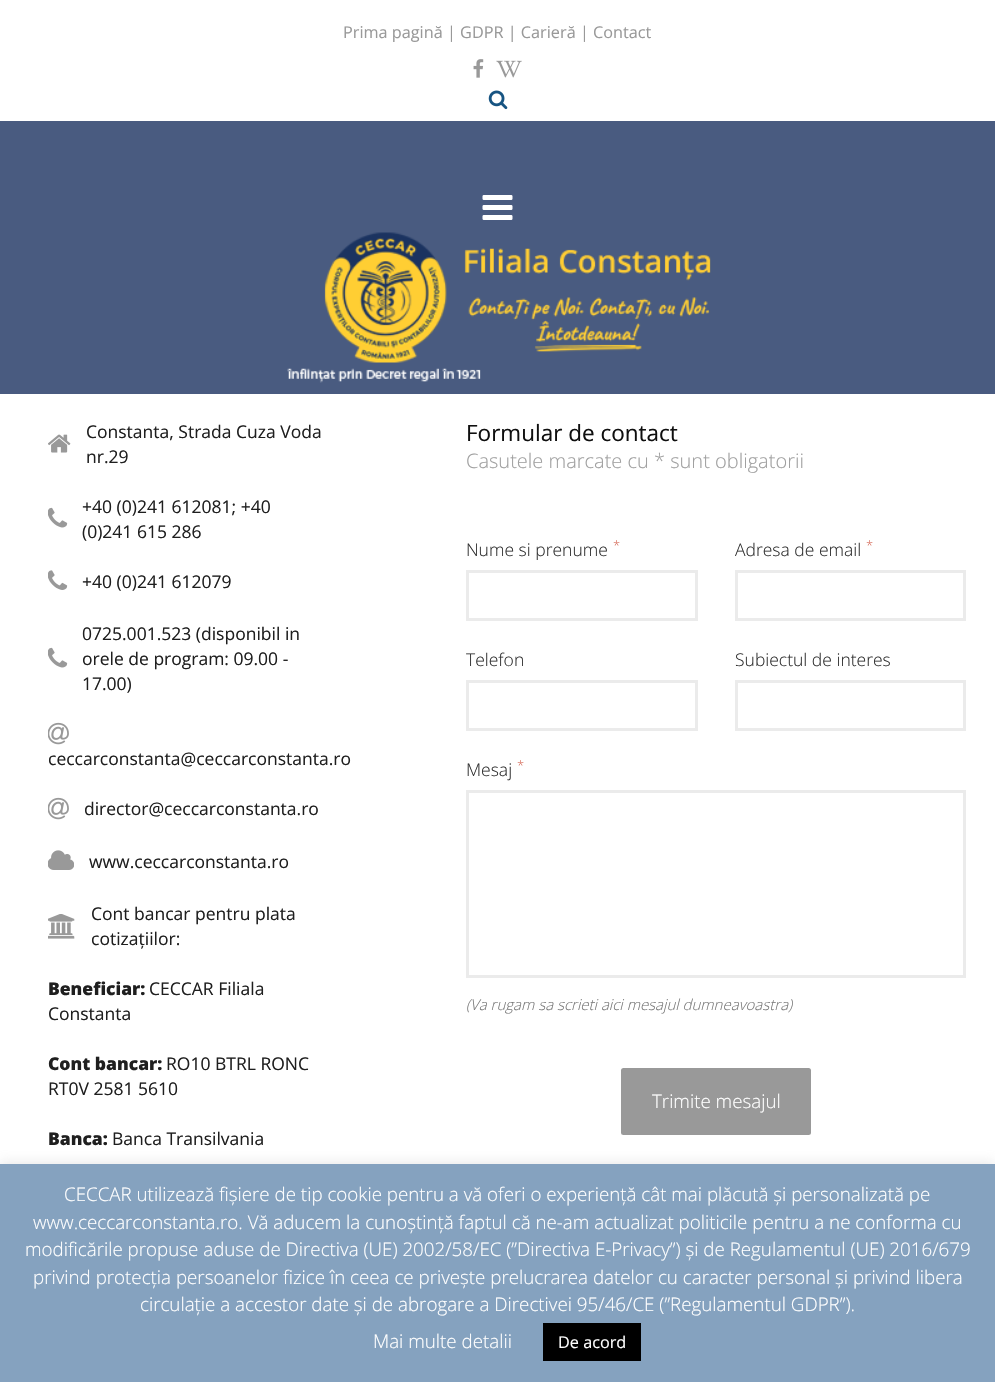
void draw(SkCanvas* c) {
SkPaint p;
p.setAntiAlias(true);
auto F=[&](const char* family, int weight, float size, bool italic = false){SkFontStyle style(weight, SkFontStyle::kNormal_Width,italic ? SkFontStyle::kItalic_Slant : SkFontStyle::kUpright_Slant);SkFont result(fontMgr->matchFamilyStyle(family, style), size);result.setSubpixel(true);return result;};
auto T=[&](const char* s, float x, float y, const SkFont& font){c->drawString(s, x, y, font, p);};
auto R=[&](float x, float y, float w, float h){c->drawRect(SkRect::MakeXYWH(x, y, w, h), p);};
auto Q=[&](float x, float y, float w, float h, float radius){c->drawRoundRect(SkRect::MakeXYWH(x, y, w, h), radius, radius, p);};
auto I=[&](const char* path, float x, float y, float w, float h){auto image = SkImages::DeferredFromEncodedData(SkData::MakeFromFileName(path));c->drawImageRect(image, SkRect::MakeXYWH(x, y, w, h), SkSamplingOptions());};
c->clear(0xffffffff);
auto f1 = F("Open Sans",400,16.25);
p.setColor(0xff999999);
T("Prima pagină | GDPR | Carieră | Contact",343,38,f1);
I("1.png",473,59,11,19);
I("2.png",496,60,26,18);
I("3.png",488,90,20,20);
p.setColor(0xff495b80);
R(0,121,995,273);
I("4.png",482,195,31,25);
I("5.png",287,232,424,151);
I("6.png",48,434,23,19);
auto f2 = F("Open Sans",400,17.5);
p.setColor(0xff1f1f1f);
T("Constanta, Strada Cuza Voda",86,438,f2);
T("nr.29",86,463,f2);
I("7.png",48,507,20,21);
T("+40 (0)241 612081; +40",82,513,f2);
T("(0)241 615 286",82,538,f2);
I("8.png",48,570,20,20);
T("+40 (0)241 612079",82,588,f2);
I("7.png",48,647,20,21);
T("0725.001.523 (disponibil in",82,640,f2);
T("orele de program: 09.00 -",82,665,f2);
T("17.00)",82,690,f2);
I("9.png",48,722,21,23);
T("ceccarconstanta@ceccarconstanta.ro",48,765,f2);
I("9.png",48,797,21,23);
T("director@ceccarconstanta.ro",84,815,f2);
I("10.png",48,850,26,20);
T("www.ceccarconstanta.ro",89,868,f2);
I("11.png",48,914,27,25);
T("Cont bancar pentru plata",91,920,f2);
T("cotizațiilor:",91,945,f2);
auto f3 = F("Open Sans",800,17.5);
T("Beneficiar:",48,995,f3);
T("CECCAR Filiala",149,995,f2);
T("Constanta",48,1020,f2);
T("Cont bancar:",48,1070,f3);
T("RO10 BTRL RONC",166,1070,f2);
T("RT0V 2581 5610",48,1095,f2);
T("Banca:",48,1145,f3);
T("Banca Transilvania",112,1145,f2);
auto f4 = F("Open Sans",400,22.5);
p.setColor(0xff0f0f0f);
T("Formular de contact",466,441,f4);
auto f5 = F("Open Sans",300,20);
p.setColor(0xffa0a0a0);
T("Casutele marcate cu * sunt obligatorii",466,468,f5);
auto f6 = F("Open Sans",300,17.5);
p.setColor(0xff303030);
T("Nume si prenume",466,556,f6);
auto f7 = F("Open Sans",300,13);
p.setColor(0xffd3604d);
T("*",613,550,f7);
p.setStroke(true);
p.setStrokeWidth(3);
p.setColor(0xffebebeb);
c->drawRect(SkRect::MakeXYWH(467.5,571.5,229,48),p);
p.setStroke(false);
p.setColor(0xff303030);
T("Adresa de email",735,556,f6);
p.setColor(0xffd3604d);
T("*",866,550,f7);
p.setStroke(true);
p.setColor(0xffebebeb);
c->drawRect(SkRect::MakeXYWH(736.5,571.5,228,48),p);
p.setStroke(false);
p.setColor(0xff303030);
T("Telefon",466,666,f6);
p.setStroke(true);
p.setColor(0xffebebeb);
c->drawRect(SkRect::MakeXYWH(467.5,681.5,229,48),p);
p.setStroke(false);
p.setColor(0xff303030);
T("Subiectul de interes",735,666,f6);
p.setStroke(true);
p.setColor(0xffebebeb);
c->drawRect(SkRect::MakeXYWH(736.5,681.5,228,48),p);
p.setStroke(false);
p.setColor(0xff303030);
T("Mesaj",466,776,f6);
p.setColor(0xffd3604d);
T("*",517,770,f7);
p.setStroke(true);
p.setColor(0xffebebeb);
c->drawRect(SkRect::MakeXYWH(467.5,791.5,497,185),p);
auto f8 = F("Open Sans",300,15,true);
p.setStroke(false);
p.setColor(0xff7a7a7a);
T("(Va rugam sa scrieti aici mesajul dumneavoastra)",466,1010,f8);
p.setColor(0xff999999);
Q(621,1068,190,67,2.5);
auto f9 = F("Open Sans",300,18.75);
p.setColor(0xffffffff);
T("Trimite mesajul",652,1108,f9);
p.setColor(0x4dacabab);
p.setMaskFilter(SkMaskFilter::MakeBlur(kNormal_SkBlurStyle, 6));
c->drawRect(SkRect::MakeXYWH(0,1163,995,218),p);
p.setMaskFilter(nullptr);
p.setColor(0xff85a2bf);
R(0,1164,995,218);
p.setColor(0xffffffff);
T("CECCAR utilizează fișiere de tip cookie pentru a vă oferi o experiență cât mai plăcută și personalizată pe",64,1201,f9);
T("www.ceccarconstanta.ro. Vă aducem la cunoștință faptul că ne-am actualizat politicile pentru a ne conforma cu",33,1229,f9);
T("modificările propuse aduse de Directiva (UE) 2002/58/EC (”Directiva E-Privacy”) și de Regulamentul (UE) 2016/679",25,1256,f9);
T("privind protecția persoanelor fizice în ceea ce privește prelucrarea datelor cu caracter personal și privind libera",33,1284,f9);
T("circulație a accestor date și de abrogare a Directivei 95/46/CE (”Regulamentul GDPR”).",140,1311,f9);
T("Mai multe detalii",373,1348,f9);
p.setColor(0xff000000);
R(543,1323,98,38);
p.setColor(0xffffffff);
T("De acord",558,1348,f1);
}
